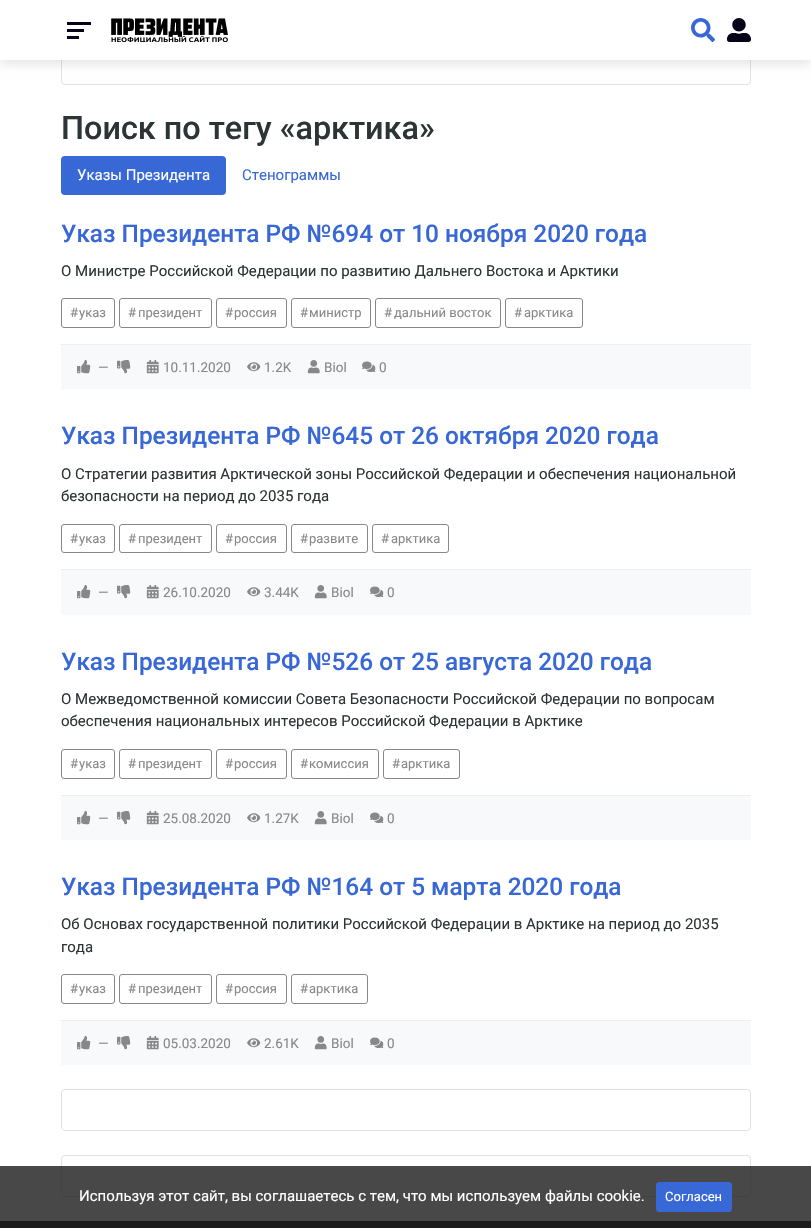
void draw(SkCanvas* c) {
SkPaint p;
p.setAntiAlias(true);
auto F=[&](const char* family, int weight, float size, bool italic = false){SkFontStyle style(weight, SkFontStyle::kNormal_Width,italic ? SkFontStyle::kItalic_Slant : SkFontStyle::kUpright_Slant);SkFont result(fontMgr->matchFamilyStyle(family, style), size);result.setSubpixel(true);return result;};
auto T=[&](const char* s, float x, float y, const SkFont& font){c->drawString(s, x, y, font, p);};
auto R=[&](float x, float y, float w, float h){c->drawRect(SkRect::MakeXYWH(x, y, w, h), p);};
auto Q=[&](float x, float y, float w, float h, float radius){c->drawRoundRect(SkRect::MakeXYWH(x, y, w, h), radius, radius, p);};
auto I=[&](const char* path, float x, float y, float w, float h){auto image = SkImages::DeferredFromEncodedData(SkData::MakeFromFileName(path));c->drawImageRect(image, SkRect::MakeXYWH(x, y, w, h), SkSamplingOptions());};
c->clear(0xffffffff);
p.setStroke(true);
p.setStrokeWidth(1);
p.setColor(0xffe2e2e2);
c->drawRoundRect(SkRect::MakeXYWH(61.5,43.5,689,41),3.5,3.5,p);
p.setStroke(false);
p.setColor(0x1a000000);
p.setMaskFilter(SkMaskFilter::MakeBlur(kNormal_SkBlurStyle, 5));
c->drawRect(SkRect::MakeXYWH(0,4,811,60),p);
p.setMaskFilter(nullptr);
p.setColor(0xffffffff);
R(0,0,811,60);
p.setColor(0xff060318);
R(67,22,24,3);
R(67,29,17,3);
R(67,36,12,3);
I("1.png",111,18,117,24);
I("2.png",691,18,24,24);
I("3.png",727,18,24,24);
auto f1 = F("Roboto",500,32.4);
p.setColor(0xff2d3436);
T("Поиск по тегу «арктика»",61,139,f1);
p.setColor(0xff3867d6);
Q(61,156,165,39,4);
auto f2 = F("Roboto",400,15);
p.setColor(0xffffffff);
T("Указы Президента",77,180,f2);
p.setColor(0xff3867d6);
T("Стенограммы",242,180,f2);
auto f3 = F("Roboto",500,24.4);
T("Указ Президента РФ №694 от 10 ноября 2020 года",61,242,f3);
p.setColor(0xff2d3436);
T("О Министре Российской Федерации по развитию Дальнего Востока и Арктики",61,276,f2);
p.setStroke(true);
p.setColor(0xff888888);
c->drawRoundRect(SkRect::MakeXYWH(61.5,298.5,53,29),2.5,2.5,p);
auto f4 = F("Roboto",400,13);
p.setStroke(false);
T("#",70,317,f4);
T("указ",79,317,f4);
p.setStroke(true);
c->drawRoundRect(SkRect::MakeXYWH(119.5,298.5,92,29),2.5,2.5,p);
p.setStroke(false);
T("#",128,317,f4);
T("президент",138,317,f4);
p.setStroke(true);
c->drawRoundRect(SkRect::MakeXYWH(216.5,298.5,70,29),2.5,2.5,p);
p.setStroke(false);
T("#",225,317,f4);
T("россия",234,317,f4);
p.setStroke(true);
c->drawRoundRect(SkRect::MakeXYWH(291.5,298.5,79,29),2.5,2.5,p);
p.setStroke(false);
T("#",300,317,f4);
T("министр",309,317,f4);
p.setStroke(true);
c->drawRoundRect(SkRect::MakeXYWH(375.5,298.5,125,29),2.5,2.5,p);
p.setStroke(false);
T("#",384,317,f4);
T("дальний восток",394,317,f4);
p.setStroke(true);
c->drawRoundRect(SkRect::MakeXYWH(505.5,298.5,77,29),2.5,2.5,p);
p.setStroke(false);
T("#",514,317,f4);
T("арктика",524,317,f4);
p.setColor(0xfff8f9fa);
R(61,345,690,44);
p.setColor(0xffeeeeee);
R(61,344,690,1);
I("4.png",77,360,14,14);
auto f5 = F("Roboto",400,13.5);
p.setColor(0xff888888);
T("—",98,372,f5);
I("5.png",117,360,14,14);
I("6.png",146,360,13,14);
T("10.11.2020",163,372,f5);
I("7.png",247,362,14,10);
T("1.2K",264,372,f5);
I("8.png",307,360,13,14);
T("Biol",324,372,f5);
I("9.png",362,361,14,11);
T("0",379,372,f5);
p.setColor(0xff3867d6);
T("Указ Президента РФ №645 от 26 октября 2020 года",61,444,f3);
p.setColor(0xff2d3436);
T("О Стратегии развития Арктической зоны Российской Федерации и обеспечения национальной",61,479,f2);
T("безопасности на период до 2035 года",61,501,f2);
p.setStroke(true);
p.setColor(0xff888888);
c->drawRoundRect(SkRect::MakeXYWH(61.5,524.5,53,28),2.5,2.5,p);
p.setStroke(false);
T("#",70,543,f4);
T("указ",79,543,f4);
p.setStroke(true);
c->drawRoundRect(SkRect::MakeXYWH(119.5,524.5,92,28),2.5,2.5,p);
p.setStroke(false);
T("#",128,543,f4);
T("президент",138,543,f4);
p.setStroke(true);
c->drawRoundRect(SkRect::MakeXYWH(216.5,524.5,70,28),2.5,2.5,p);
p.setStroke(false);
T("#",225,543,f4);
T("россия",234,543,f4);
p.setStroke(true);
c->drawRoundRect(SkRect::MakeXYWH(291.5,524.5,76,28),2.5,2.5,p);
p.setStroke(false);
T("#",300,543,f4);
T("развите",309,543,f4);
p.setStroke(true);
c->drawRoundRect(SkRect::MakeXYWH(372.5,524.5,76,28),2.5,2.5,p);
p.setStroke(false);
T("#",381,543,f4);
T("арктика",391,543,f4);
p.setColor(0xfff8f9fa);
R(61,570,690,45);
p.setColor(0xffeeeeee);
R(61,569,690,1);
I("4.png",77,585,14,14);
p.setColor(0xff888888);
T("—",98,597,f5);
I("5.png",117,585,14,14);
I("6.png",146,585,13,14);
T("26.10.2020",163,597,f5);
I("7.png",247,587,14,10);
T("3.44K",264,597,f5);
I("8.png",314,585,13,14);
T("Biol",331,597,f5);
I("9.png",370,586,14,11);
T("0",387,597,f5);
p.setColor(0xff3867d6);
T("Указ Президента РФ №526 от 25 августа 2020 года",61,670,f3);
p.setColor(0xff2d3436);
T("О Межведомственной комиссии Совета Безопасности Российской Федерации по вопросам",61,704,f2);
T("обеспечения национальных интересов Российской Федерации в Арктике",61,726,f2);
p.setStroke(true);
p.setColor(0xff888888);
c->drawRoundRect(SkRect::MakeXYWH(61.5,749.5,53,29),2.5,2.5,p);
p.setStroke(false);
T("#",70,768,f4);
T("указ",79,768,f4);
p.setStroke(true);
c->drawRoundRect(SkRect::MakeXYWH(119.5,749.5,92,29),2.5,2.5,p);
p.setStroke(false);
T("#",128,768,f4);
T("президент",138,768,f4);
p.setStroke(true);
c->drawRoundRect(SkRect::MakeXYWH(216.5,749.5,70,29),2.5,2.5,p);
p.setStroke(false);
T("#",225,768,f4);
T("россия",234,768,f4);
p.setStroke(true);
c->drawRoundRect(SkRect::MakeXYWH(291.5,749.5,87,29),2.5,2.5,p);
p.setStroke(false);
T("#",300,768,f4);
T("комиссия",309,768,f4);
p.setStroke(true);
c->drawRoundRect(SkRect::MakeXYWH(383.5,749.5,76,29),2.5,2.5,p);
p.setStroke(false);
T("#",392,768,f4);
T("арктика",401,768,f4);
p.setColor(0xfff8f9fa);
R(61,796,690,44);
p.setColor(0xffeeeeee);
R(61,795,690,1);
I("4.png",77,811,14,14);
p.setColor(0xff888888);
T("—",98,823,f5);
I("5.png",117,811,14,14);
I("6.png",146,811,13,14);
T("25.08.2020",163,823,f5);
I("7.png",247,813,14,10);
T("1.27K",264,823,f5);
I("8.png",314,811,13,14);
T("Biol",331,823,f5);
I("9.png",370,812,14,11);
T("0",387,823,f5);
p.setColor(0xff3867d6);
T("Указ Президента РФ №164 от 5 марта 2020 года",61,895,f3);
p.setColor(0xff2d3436);
T("Об Основах государственной политики Российской Федерации в Арктике на период до 2035",61,929,f2);
T("года",61,952,f2);
p.setStroke(true);
p.setColor(0xff888888);
c->drawRoundRect(SkRect::MakeXYWH(61.5,974.5,53,29),2.5,2.5,p);
p.setStroke(false);
T("#",70,993,f4);
T("указ",79,993,f4);
p.setStroke(true);
c->drawRoundRect(SkRect::MakeXYWH(119.5,974.5,92,29),2.5,2.5,p);
p.setStroke(false);
T("#",128,993,f4);
T("президент",138,993,f4);
p.setStroke(true);
c->drawRoundRect(SkRect::MakeXYWH(216.5,974.5,70,29),2.5,2.5,p);
p.setStroke(false);
T("#",225,993,f4);
T("россия",234,993,f4);
p.setStroke(true);
c->drawRoundRect(SkRect::MakeXYWH(291.5,974.5,76,29),2.5,2.5,p);
p.setStroke(false);
T("#",300,993,f4);
T("арктика",309,993,f4);
p.setColor(0xfff8f9fa);
R(61,1021,690,44);
p.setColor(0xffeeeeee);
R(61,1020,690,1);
I("4.png",77,1036,14,14);
p.setColor(0xff888888);
T("—",98,1048,f5);
I("5.png",117,1036,14,14);
I("6.png",146,1036,13,14);
T("05.03.2020",163,1048,f5);
I("7.png",247,1038,14,10);
T("2.61K",264,1048,f5);
I("8.png",314,1036,13,14);
T("Biol",331,1048,f5);
I("9.png",370,1037,14,11);
T("0",387,1048,f5);
p.setStroke(true);
p.setColor(0xffe2e2e2);
c->drawRoundRect(SkRect::MakeXYWH(61.5,1089.5,689,41),3.5,3.5,p);
c->drawRoundRect(SkRect::MakeXYWH(61.5,1155.5,689,41),3.5,3.5,p);
p.setStroke(false);
p.setColor(0xff1e2224);
R(0,1221,811,7);
p.setColor(0xcc1a1a1a);
R(0,1166,811,62);
p.setColor(0xffffffff);
T("Используя этот сайт, вы соглашаетесь с тем, что мы используем файлы cookie.",79,1201,f2);
p.setColor(0xff3867d6);
c->drawRoundRect(SkRect::MakeXYWH(656.5,1182.5,75,29),2.5,2.5,p);
p.setStroke(true);
c->drawRoundRect(SkRect::MakeXYWH(656.5,1182.5,75,29),2.5,2.5,p);
p.setStroke(false);
p.setColor(0xffffffff);
T("Согласен",665,1201,f4);
}
